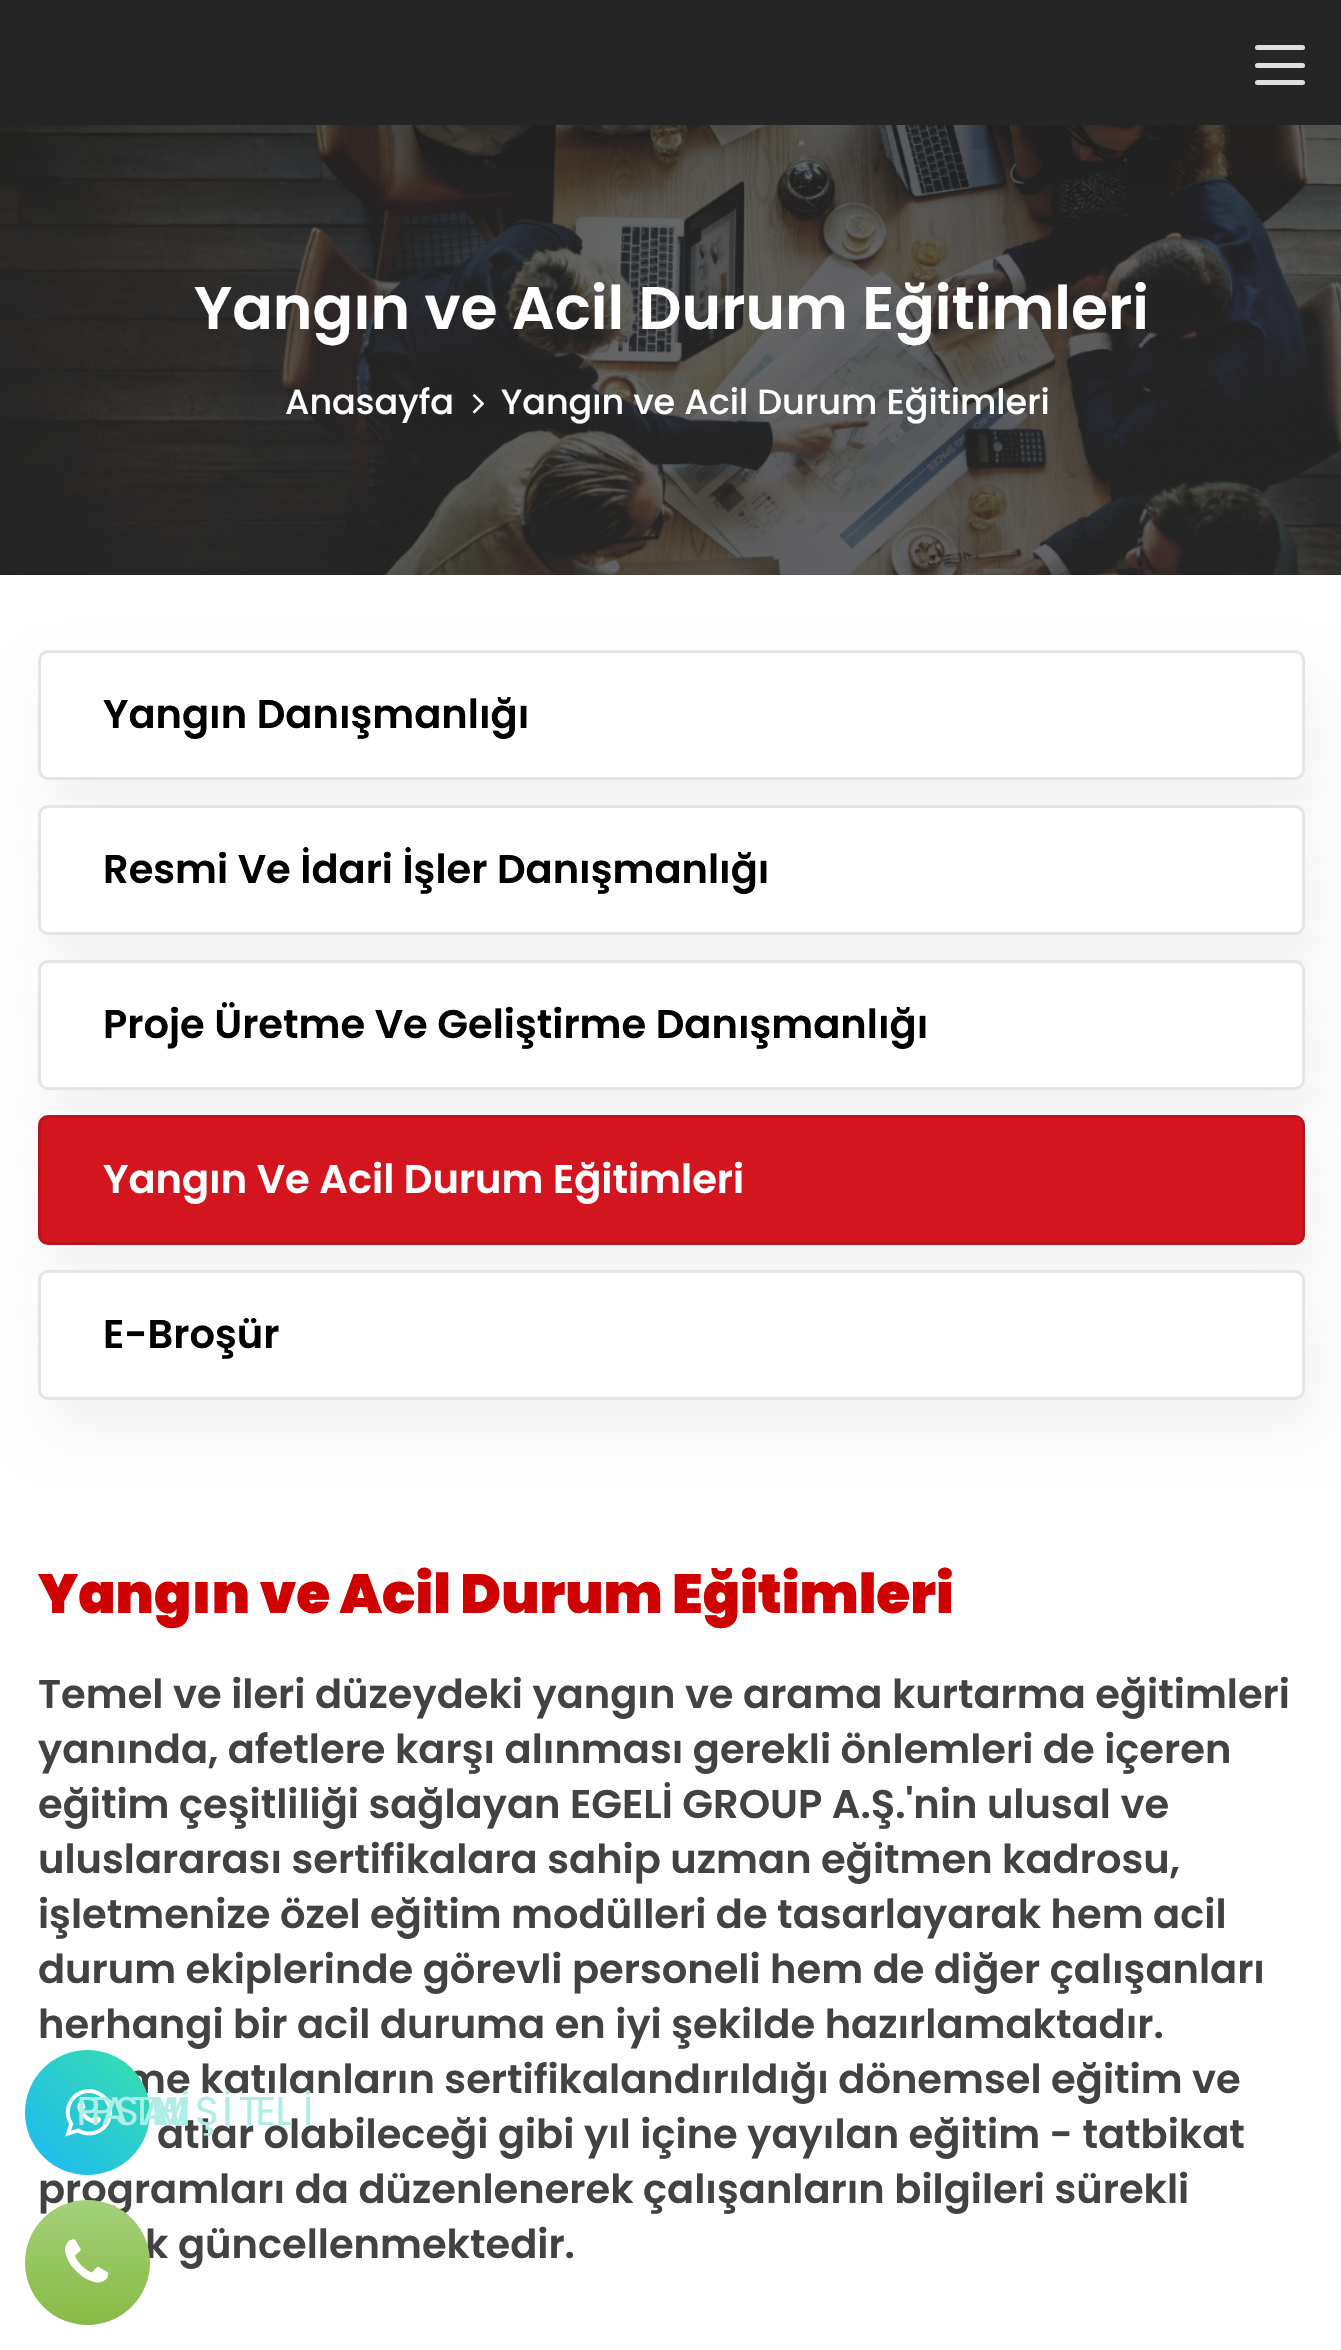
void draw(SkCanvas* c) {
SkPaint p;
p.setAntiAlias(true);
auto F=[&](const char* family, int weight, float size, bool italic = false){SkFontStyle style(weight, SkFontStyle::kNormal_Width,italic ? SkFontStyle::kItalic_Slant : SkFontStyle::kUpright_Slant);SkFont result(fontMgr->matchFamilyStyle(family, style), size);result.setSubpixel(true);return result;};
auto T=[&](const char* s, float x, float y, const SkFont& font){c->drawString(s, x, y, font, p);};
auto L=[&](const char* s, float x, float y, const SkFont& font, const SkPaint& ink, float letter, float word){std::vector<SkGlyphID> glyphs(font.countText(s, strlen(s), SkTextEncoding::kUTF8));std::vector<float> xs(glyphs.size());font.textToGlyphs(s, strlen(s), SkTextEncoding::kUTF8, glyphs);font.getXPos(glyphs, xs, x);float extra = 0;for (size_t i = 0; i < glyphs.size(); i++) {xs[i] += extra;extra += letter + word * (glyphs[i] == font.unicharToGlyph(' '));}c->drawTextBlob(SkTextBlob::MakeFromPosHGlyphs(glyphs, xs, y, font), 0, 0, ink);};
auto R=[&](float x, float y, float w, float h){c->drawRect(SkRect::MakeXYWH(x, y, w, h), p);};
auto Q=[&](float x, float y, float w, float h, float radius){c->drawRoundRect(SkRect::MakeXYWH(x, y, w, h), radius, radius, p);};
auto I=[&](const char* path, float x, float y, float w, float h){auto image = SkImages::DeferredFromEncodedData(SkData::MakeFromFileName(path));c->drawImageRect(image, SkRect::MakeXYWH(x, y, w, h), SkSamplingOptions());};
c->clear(0xffffffff);
p.setColor(0xff252525);
R(0,0,1341,125);
p.setColor(0xffdfdfdf);
Q(1255,45,50,5,2.5);
Q(1255,63,50,5,2.5);
Q(1255,80,50,5,2.5);
I("1.png",0,125,1341,450);
auto f1 = F("Poppins",600,60);
p.setColor(0xffffffff);
T("Yangın ve Acil Durum Eğitimleri",194,329,f1);
auto f2 = F("Poppins",500,35);
T("Anasayfa",285,414,f2);
I("2.png",472,394,13,20);
T("Yangın ve Acil Durum Eğitimleri",501,414,f2);
p.setColor(0x0d000000);
p.setMaskFilter(SkMaskFilter::MakeBlur(kNormal_SkBlurStyle, 25));
c->drawRoundRect(SkRect::MakeXYWH(50,680,1268,130),10,10,p);
p.setMaskFilter(nullptr);
p.setColor(0xffffffff);
c->drawRoundRect(SkRect::MakeXYWH(39.5,651.5,1264,127),8.5,8.5,p);
p.setStroke(true);
p.setStrokeWidth(3);
p.setColor(0xffe5e5e5);
c->drawRoundRect(SkRect::MakeXYWH(39.5,651.5,1264,127),8.5,8.5,p);
auto f3 = F("Poppins",600,40);
p.setStroke(false);
p.setColor(0xff000000);
T("Yangın Danışmanlığı",103,728,f3);
p.setColor(0x0d000000);
p.setMaskFilter(SkMaskFilter::MakeBlur(kNormal_SkBlurStyle, 25));
c->drawRoundRect(SkRect::MakeXYWH(50,835,1268,130),10,10,p);
p.setMaskFilter(nullptr);
p.setColor(0xffffffff);
Q(38,805,1267,130,10);
p.setStroke(true);
p.setColor(0x1a000000);
c->drawRoundRect(SkRect::MakeXYWH(39.5,806.5,1264,127),8.5,8.5,p);
p.setStroke(false);
p.setColor(0xff000000);
T("Resmi Ve İdari İşler Danışmanlığı",103,883,f3);
p.setColor(0x0d000000);
p.setMaskFilter(SkMaskFilter::MakeBlur(kNormal_SkBlurStyle, 25));
c->drawRoundRect(SkRect::MakeXYWH(50,990,1268,130),10,10,p);
p.setMaskFilter(nullptr);
p.setColor(0xffffffff);
Q(38,960,1267,130,10);
p.setStroke(true);
p.setColor(0x1a000000);
c->drawRoundRect(SkRect::MakeXYWH(39.5,961.5,1264,127),8.5,8.5,p);
p.setStroke(false);
p.setColor(0xff000000);
T("Proje Üretme Ve Geliştirme Danışmanlığı",103,1038,f3);
p.setColor(0x0d000000);
p.setMaskFilter(SkMaskFilter::MakeBlur(kNormal_SkBlurStyle, 25));
c->drawRoundRect(SkRect::MakeXYWH(50,1145,1268,130),10,10,p);
p.setMaskFilter(nullptr);
p.setColor(0xffd2151e);
Q(38,1115,1267,130,10);
p.setStroke(true);
p.setColor(0x1a000000);
c->drawRoundRect(SkRect::MakeXYWH(39.5,1116.5,1264,127),8.5,8.5,p);
p.setStroke(false);
p.setColor(0xffffffff);
T("Yangın Ve Acil Durum Eğitimleri",103,1193,f3);
p.setColor(0x0d000000);
p.setMaskFilter(SkMaskFilter::MakeBlur(kNormal_SkBlurStyle, 25));
c->drawRoundRect(SkRect::MakeXYWH(50,1300,1268,130),10,10,p);
p.setMaskFilter(nullptr);
p.setColor(0xffffffff);
Q(38,1270,1267,130,10);
p.setStroke(true);
p.setColor(0x1a000000);
c->drawRoundRect(SkRect::MakeXYWH(39.5,1271.5,1264,127),8.5,8.5,p);
p.setStroke(false);
p.setColor(0xff000000);
T("E-Broşür",103,1348,f3);
auto f4 = F("Poppins",900,55);
p.setColor(0xffce0000);
T("Yangın ve Acil Durum Eğitimleri",38,1613,f4);
p.setColor(0xff424242);
T("Temel ve ileri düzeydeki yangın ve arama kurtarma eğitimleri",38,1708,f3);
T("yanında, afetlere karşı alınması gerekli önlemleri de içeren",38,1763,f3);
T("eğitim çeşitliliği sağlayan EGELİ GROUP A.Ş.'nin ulusal ve",38,1818,f3);
T("uluslararası sertifikalara sahip uzman eğitmen kadrosu,",38,1873,f3);
T("işletmenize özel eğitim modülleri de tasarlayarak hem acil",38,1928,f3);
T("durum ekiplerinde görevli personeli hem de diğer çalışanları",38,1983,f3);
T("herhangi bir acil duruma en iyi şekilde hazırlamaktadır.",38,2038,f3);
T("me katılanların sertifikalandırıldığı dönemsel eğitim ve",124,2093,f3);
T("atlar olabileceği gibi yıl içine yayılan eğitim - tatbikat",157,2148,f3);
T("programları da düzenlenerek çalışanların bilgileri sürekli",38,2203,f3);
T("k güncellenmektedir.",145,2258,f3);
{
const SkColor colors[] = {0xff1ebbf0,0xff39dfaa};
const float stops[] = {.08,1};
const SkPoint ends[] = {{25,2175}, {150,2050}};
p.setShader(SkGradientShader::MakeLinear(ends, colors, stops, 2, SkTileMode::kClamp));
p.setAlpha(255);
}
c->drawCircle(87.5,2112.5,62.5,p);
I("3.png",65,2089,48,48);
auto f5 = F("Poppins",400,40);
p.setShader(nullptr);
p.setColor(0xffaeeee6);
L("WHATSAPP İLETİŞİM",150,2125,f5,p,-37.5,268);
{
const SkColor colors[] = {0xffa3d179,0xff88ba46};
const float stops[] = {0,1};
const SkPoint ends[] = {{88,2200}, {88,2325}};
p.setShader(SkGradientShader::MakeLinear(ends, colors, stops, 2, SkTileMode::kClamp));
p.setAlpha(255);
}
c->drawCircle(87.5,2262.5,62.5,p);
I("4.png",65,2239,44,44);
}
